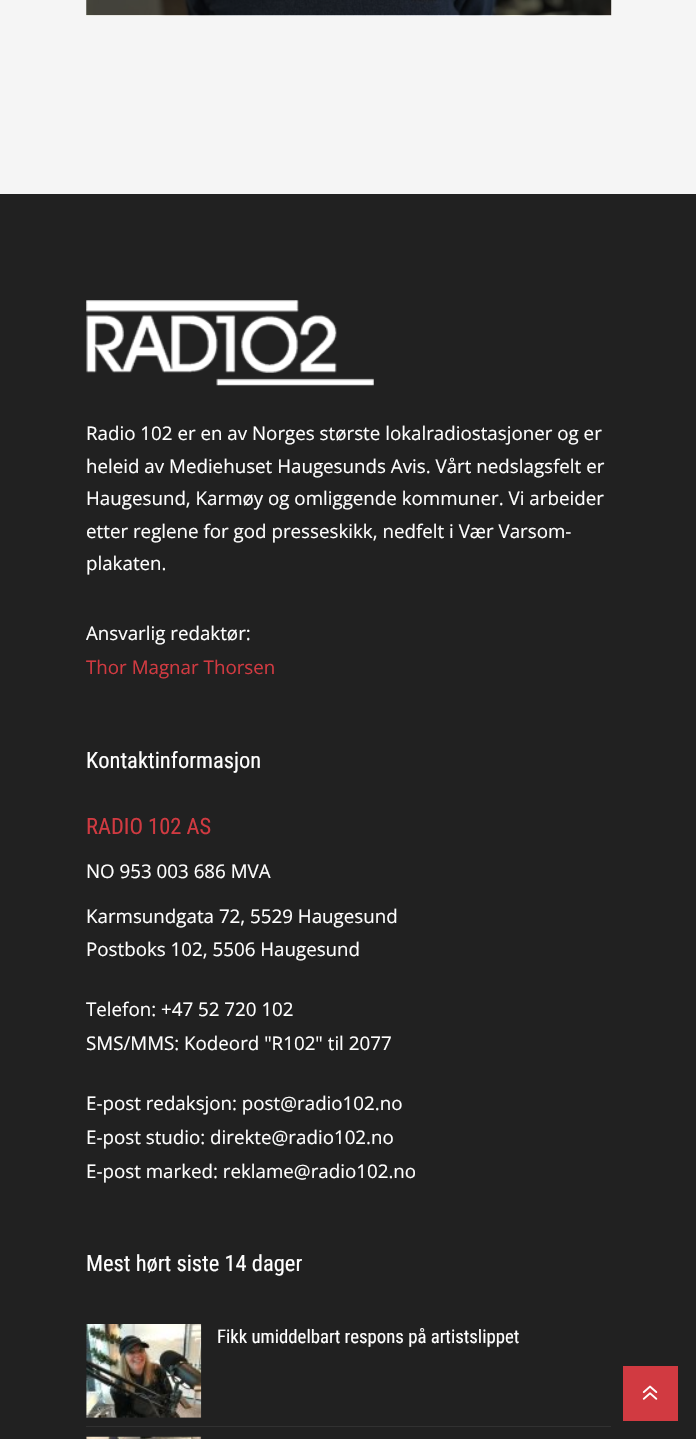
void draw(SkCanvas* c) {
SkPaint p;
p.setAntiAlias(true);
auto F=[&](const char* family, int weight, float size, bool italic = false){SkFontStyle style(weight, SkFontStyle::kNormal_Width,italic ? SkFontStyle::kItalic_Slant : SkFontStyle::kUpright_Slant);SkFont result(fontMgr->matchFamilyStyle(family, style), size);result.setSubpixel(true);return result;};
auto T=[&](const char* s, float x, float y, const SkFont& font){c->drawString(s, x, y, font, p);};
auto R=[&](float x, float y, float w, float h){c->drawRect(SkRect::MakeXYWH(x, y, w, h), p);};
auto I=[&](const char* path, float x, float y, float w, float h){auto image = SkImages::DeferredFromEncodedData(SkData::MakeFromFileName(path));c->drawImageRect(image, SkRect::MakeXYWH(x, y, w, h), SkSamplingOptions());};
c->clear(0xfff5f5f5);
I("1.png",86,0,526,16);
p.setColor(0xff212121);
R(0,194,696,1245);
I("2.png",86,300,288,86);
auto f1 = F("Open Sans",400,18.75);
p.setColor(0xffffffff);
T("Radio 102 er en av Norges største lokalradiostasjoner og er",86,440,f1);
T("heleid av Mediehuset Haugesunds Avis. Vårt nedslagsfelt er",86,473,f1);
T("Haugesund, Karmøy og omliggende kommuner. Vi arbeider",86,505,f1);
T("etter reglene for god presseskikk, nedfelt i Vær Varsom-",86,538,f1);
T("plakaten.",86,570,f1);
T("Ansvarlig redaktør:",86,640,f1);
p.setColor(0xffd13a41);
T("Thor Magnar Thorsen",86,674,f1);
auto f2 = F("Roboto Condensed",400,22.5);
p.setColor(0xffffffff);
T("Kontaktinformasjon",86,768,f2);
p.setColor(0xffd13a41);
T("RADIO 102 AS",86,834,f2);
p.setColor(0xffffffff);
T("NO 953 003 686 MVA",86,878,f1);
T("Karmsundgata 72, 5529 Haugesund",86,923,f1);
T("Postboks 102, 5506 Haugesund",86,956,f1);
T("Telefon: +47 52 720 102",86,1016,f1);
T("SMS/MMS: Kodeord \"R102\" til 2077",86,1050,f1);
T("E-post redaksjon: post@radio102.no",86,1110,f1);
T("E-post studio: direkte@radio102.no",86,1144,f1);
T("E-post marked: reklame@radio102.no",86,1178,f1);
T("Mest hørt siste 14 dager",86,1271,f2);
p.setColor(0xff313131);
R(86,1426,525,1);
I("3.png",86,1324,116,94);
auto f3 = F("Roboto Condensed",400,18.75);
p.setColor(0xffffffff);
T("Fikk umiddelbart respons på artistslippet",217,1343,f3);
I("4.png",86,1436,116,3);
p.setColor(0xffd13a41);
R(623,1366,55,55);
I("5.png",642,1385,16,15);
}
